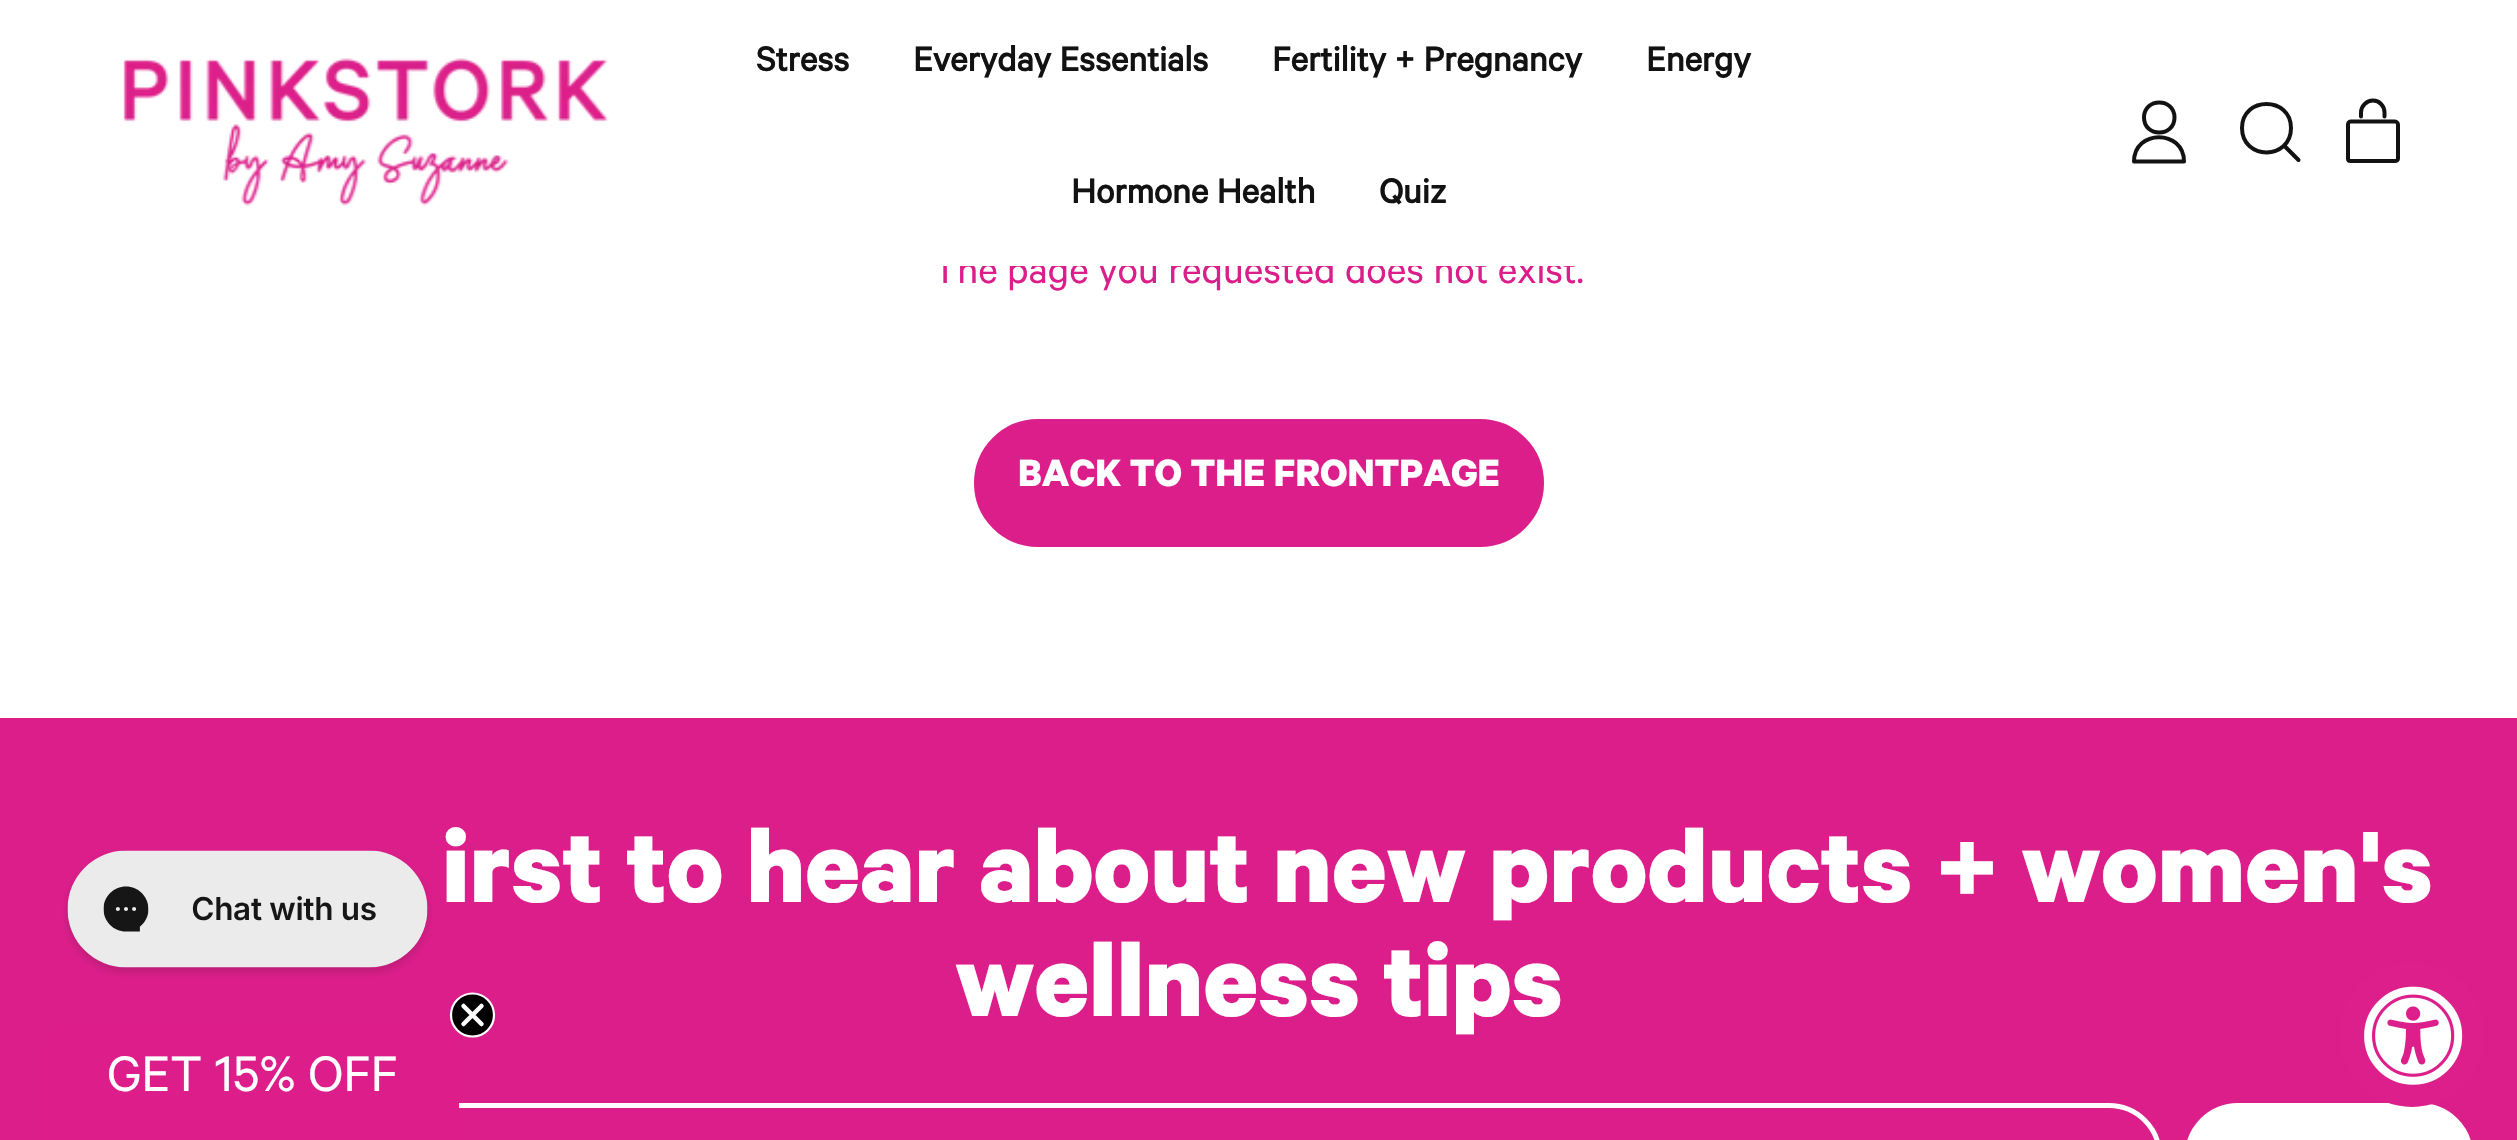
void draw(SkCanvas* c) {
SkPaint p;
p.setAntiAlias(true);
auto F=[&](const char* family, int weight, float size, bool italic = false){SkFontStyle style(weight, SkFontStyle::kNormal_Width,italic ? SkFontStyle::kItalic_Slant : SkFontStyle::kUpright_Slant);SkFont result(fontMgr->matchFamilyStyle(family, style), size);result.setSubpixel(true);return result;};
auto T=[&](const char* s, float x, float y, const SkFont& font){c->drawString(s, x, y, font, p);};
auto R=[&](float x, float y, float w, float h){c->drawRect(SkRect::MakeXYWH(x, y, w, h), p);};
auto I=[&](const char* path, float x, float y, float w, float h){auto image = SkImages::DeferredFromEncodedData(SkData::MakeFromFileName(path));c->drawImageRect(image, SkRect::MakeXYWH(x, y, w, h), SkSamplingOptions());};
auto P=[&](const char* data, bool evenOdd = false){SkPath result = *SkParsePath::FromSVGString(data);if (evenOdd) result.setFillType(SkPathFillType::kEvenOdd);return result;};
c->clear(0xffffffff);
auto f1 = F("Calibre",400,42.75);
p.setColor(0xffdc1e8a);
T("The page you requested does not exist.",933,283,f1);
p.setColor(0xffffffff);
R(934,255,641,11);
I("1.png",123,58,486,148);
auto f2 = F("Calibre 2",700,38.25);
p.setColor(0xff121212);
T("Stress",756,71,f2);
T("Everyday Essentials",913,71,f2);
T("Fertility + Pregnancy",1272,71,f2);
T("Energy",1646,71,f2);
T("Hormone Health",1071,203,f2);
T("Quiz",1379,203,f2);
p.setStroke(true);
p.setStrokeWidth(4);
p.setStrokeCap(SkPaint::kRound_Cap);
p.setStrokeJoin(SkPaint::kRound_Join);
c->drawPath(P("M2144 117.5c0 20 30.5 20 30.5 0c0-20-30.5-20-30.5 0zm-10 44c0-32.5 50-32.5 50 0z"),p);
c->drawPath(P("M2242 128c0 32.5 49 32.5 49 0c0-32-49-32-49 0zm56.5 32l-14.5-14.5"),p);
c->drawPath(P("M2395 121.5h-44.5c-1.5 0-2.5 1.5-2.5 3v34c0 1.5 1 2.5 2.5 2.5h44.5c1.5 0 3-1 3-2.5v-34c0-1.5-1.5-3-3-3zm-34-5v-4c0-6.5 5.5-12 12-12c6.5 0 11.5 5.5 11.5 12v4"),p);
p.setStroke(false);
p.setColor(0xffdc1e8a);
c->drawRoundRect(SkRect::MakeXYWH(976.5,421.5,565,123),61.5,61.5,p);
p.setStroke(true);
p.setStrokeWidth(5);
p.setStrokeCap(SkPaint::kButt_Cap);
p.setStrokeJoin(SkPaint::kMiter_Join);
c->drawRoundRect(SkRect::MakeXYWH(976.5,421.5,565,123),61.5,61.5,p);
auto f3 = F("Calibre",700,42.75);
p.setStroke(false);
p.setColor(0xffffffff);
T("BACK TO THE FRONTPAGE",1018,486,f3);
p.setColor(0xffdc1e8a);
R(0,718,2517,422);
I("2.png",63,850,369,127);
auto f4 = F("Calibre",700,114.1);
p.setColor(0xffffffff);
T("irst to hear about new products + women's",442,902,f4);
T("wellness tips",955,1016,f4);
p.setStroke(true);
c->drawRoundRect(SkRect::MakeXYWH(47.5,1105.5,2112,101),61.5,61.5,p);
p.setStroke(false);
c->drawRoundRect(SkRect::MakeXYWH(2187.5,1105.5,283,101),61.5,61.5,p);
p.setStroke(true);
c->drawRoundRect(SkRect::MakeXYWH(2187.5,1105.5,283,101),61.5,61.5,p);
p.setStroke(false);
p.setColor(0xffdc1d8a);
c->drawPath(P("M68 1028h368c12.5 0 23 10.5 23 23v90h-414v-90c0-12.5 10.5-23 23-23z"),p);
p.setColor(0xff000000);
c->drawCircle(472.5,1015,21.5,p);
p.setStroke(true);
p.setStrokeWidth(2.2);
p.setColor(0xffffffff);
c->drawCircle(472.5,1015,21.5,p);
p.setStrokeWidth(4.5);
p.setStrokeCap(SkPaint::kRound_Cap);
p.setStrokeJoin(SkPaint::kRound_Join);
c->drawPath(P("M463.5 1006l18 18m-18 0l18-18z"),p);
auto f5 = F("Calibre",400,56.25);
p.setStroke(false);
T("GET 15% OFF",107,1091,f5);
p.setColor(0xffdc1f8a);
c->drawCircle(2412,1035,72,p);
I("3.png",2364,986,99,99);
}
